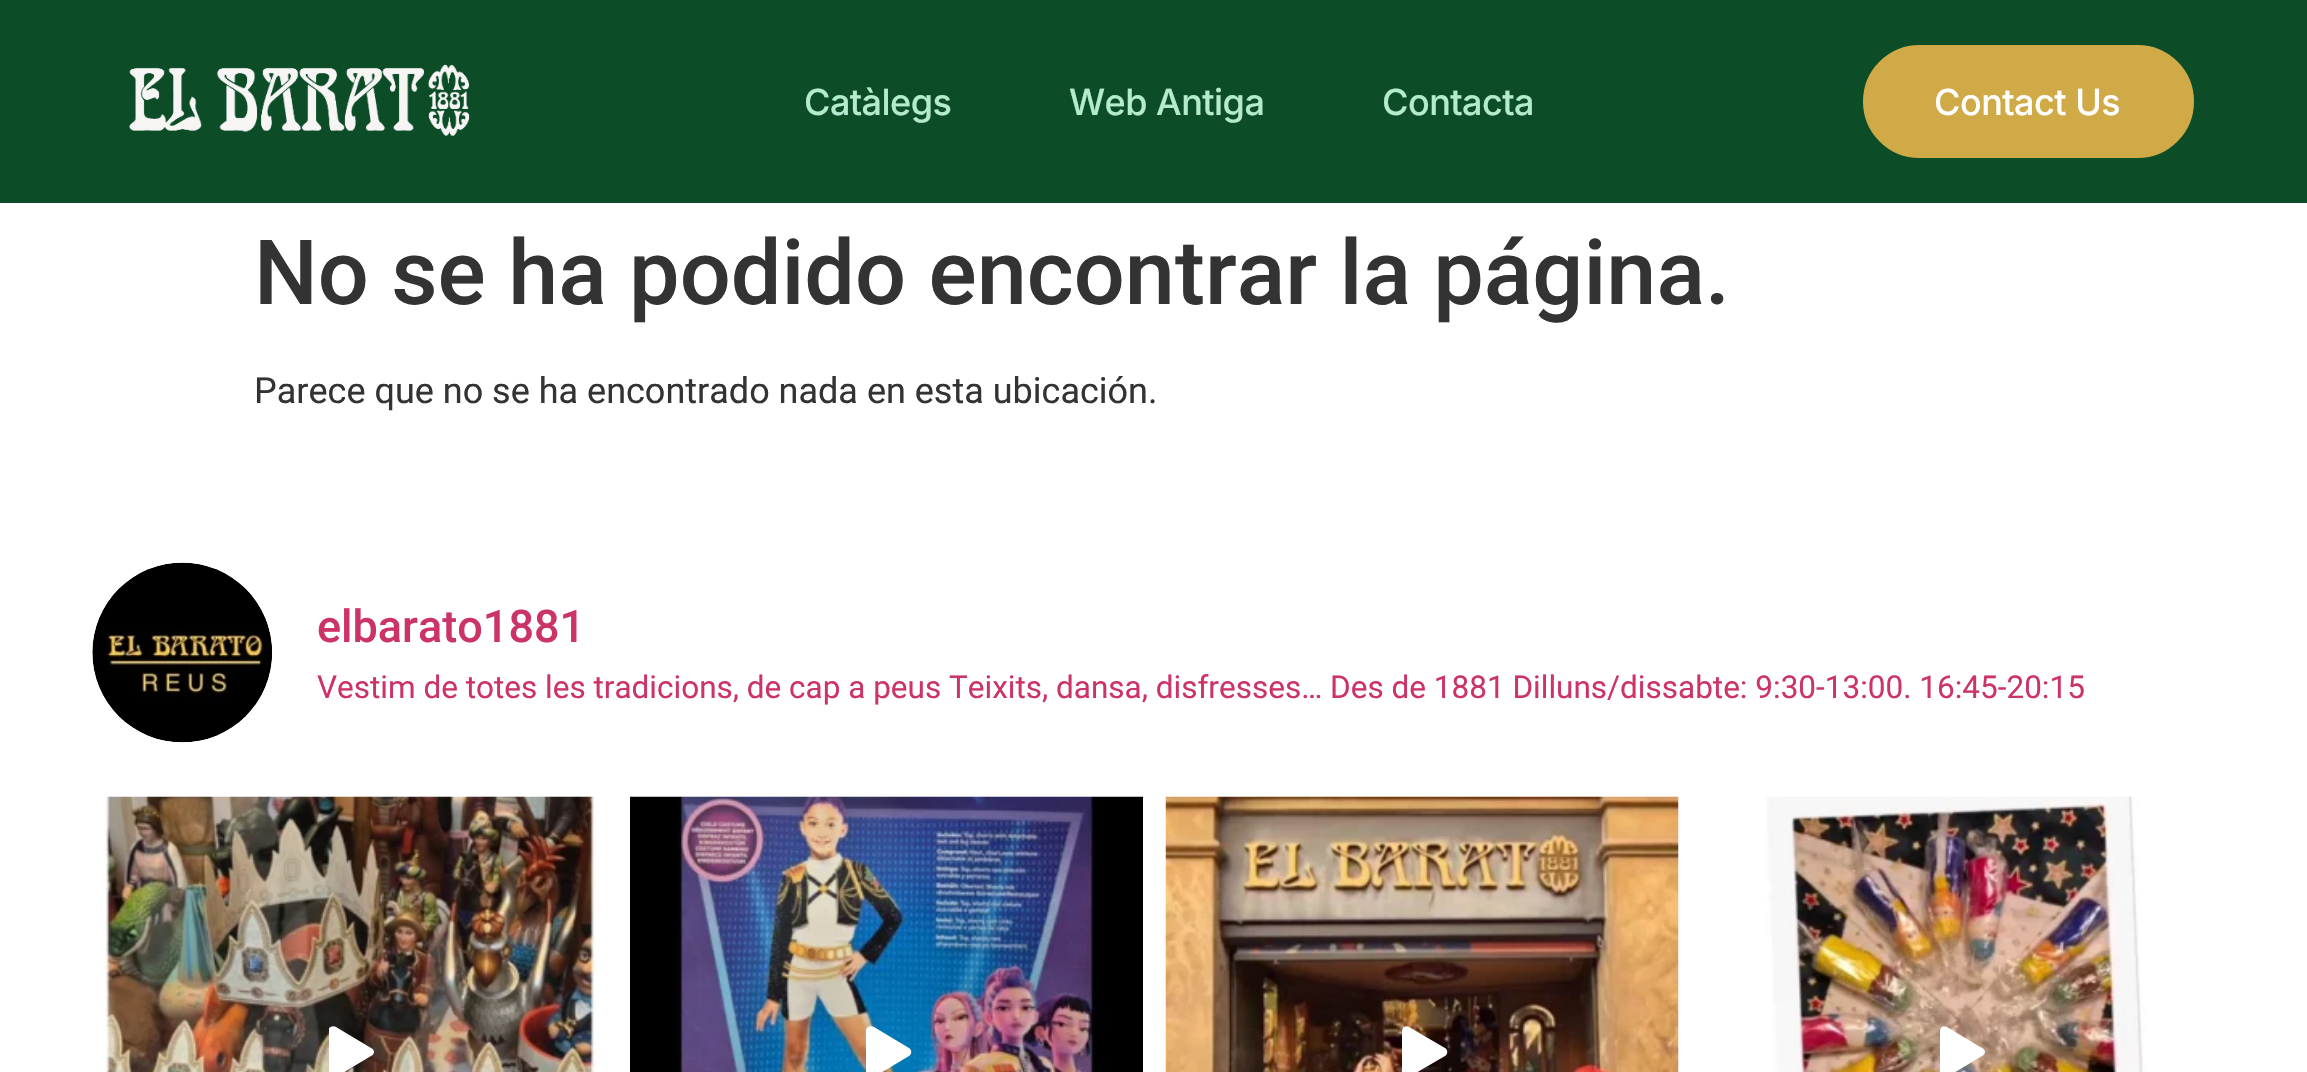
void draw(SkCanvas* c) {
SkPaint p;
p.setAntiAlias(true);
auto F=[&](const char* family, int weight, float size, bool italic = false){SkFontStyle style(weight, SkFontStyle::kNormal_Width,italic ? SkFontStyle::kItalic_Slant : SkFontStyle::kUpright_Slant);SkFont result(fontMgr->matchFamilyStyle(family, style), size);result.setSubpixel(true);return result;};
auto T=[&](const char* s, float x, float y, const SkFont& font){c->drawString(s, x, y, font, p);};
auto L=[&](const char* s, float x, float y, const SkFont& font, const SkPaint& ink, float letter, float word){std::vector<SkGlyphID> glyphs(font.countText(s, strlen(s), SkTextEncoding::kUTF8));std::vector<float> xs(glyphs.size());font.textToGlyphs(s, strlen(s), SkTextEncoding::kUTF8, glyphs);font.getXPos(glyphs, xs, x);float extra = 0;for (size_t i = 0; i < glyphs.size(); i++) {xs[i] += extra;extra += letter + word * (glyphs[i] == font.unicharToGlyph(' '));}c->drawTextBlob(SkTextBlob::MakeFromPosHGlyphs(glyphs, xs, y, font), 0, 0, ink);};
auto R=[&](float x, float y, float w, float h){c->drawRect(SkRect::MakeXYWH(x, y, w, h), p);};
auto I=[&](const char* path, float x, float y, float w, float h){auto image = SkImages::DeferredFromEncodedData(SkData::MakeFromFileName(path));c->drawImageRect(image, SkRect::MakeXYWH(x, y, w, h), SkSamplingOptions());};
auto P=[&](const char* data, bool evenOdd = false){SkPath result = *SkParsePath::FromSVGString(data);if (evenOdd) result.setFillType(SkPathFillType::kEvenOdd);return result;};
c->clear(0xffffffff);
p.setColor(0xff0c4d28);
R(0,0,2307,203);
I("1.png",129,64,341,73);
auto f1 = F("Inter",500,36);
p.setColor(0xffb4ebcc);
L("Catàlegs",804,115,f1,p,-.5,0);
L("Web Antiga",1069,115,f1,p,-.5,0);
L("Contacta",1382,115,f1,p,-.5,0);
p.setColor(0xffd0aa46);
c->drawRoundRect(SkRect::MakeXYWH(1865.5,47.5,326,108),54,54,p);
p.setStroke(true);
p.setStrokeWidth(5);
c->drawRoundRect(SkRect::MakeXYWH(1865.5,47.5,326,108),54,54,p);
p.setStroke(false);
p.setColor(0xffffffff);
L("Contact Us",1934,115,f1,p,-.5,0);
auto f2 = F("Roboto",500,90);
p.setColor(0xff333333);
T("No se ha podido encontrar la página.",254,304,f2);
auto f3 = F("Roboto",400,36);
T("Parece que no se ha encontrado nada en esta ubicación.",254,403,f3);
I("2.png",92,562,180,181);
auto f4 = F("Roboto",500,45);
p.setColor(0xffcc3366);
T("elbarato1881",317,642,f4);
auto f5 = F("Roboto",400,31.5);
T("Vestim de totes les tradicions, de cap a peus Teixits, dansa, disfresses… Des de 1881 Dilluns/dissabte: 9:30-13:00. 16:45-20:15",317,698,f5);
I("3.png",104,796,492,276);
c->save();
c->clipRect(SkRect::MakeXYWH(329,1026,45,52));
p.setColor(0xffffffff);
c->drawPath(P("M371 1048l-35-21c-3-2-8 0-8 4v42c0 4 5 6 8 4l35-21c4-2 4-6 0-8z"),p);
c->restore();
I("4.png",630,796,513,276);
c->drawPath(P("M909 1048l-35-21c-3-2-8 0-8 4v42c0 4 4 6 8 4l35-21c3-2 3-6 0-8z"),p);
I("5.png",1165,796,514,276);
c->drawPath(P("M1445 1048l-36-21c-3-2-7 0-7 4v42c0 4 4 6 7 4l36-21c3-2 3-6 0-8z"),p);
I("6.png",1766,796,379,276);
c->drawPath(P("M1982 1048l-35-21c-3-2-7 0-7 4v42c0 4 4 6 7 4l35-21c4-2 4-6 0-8z"),p);
}
